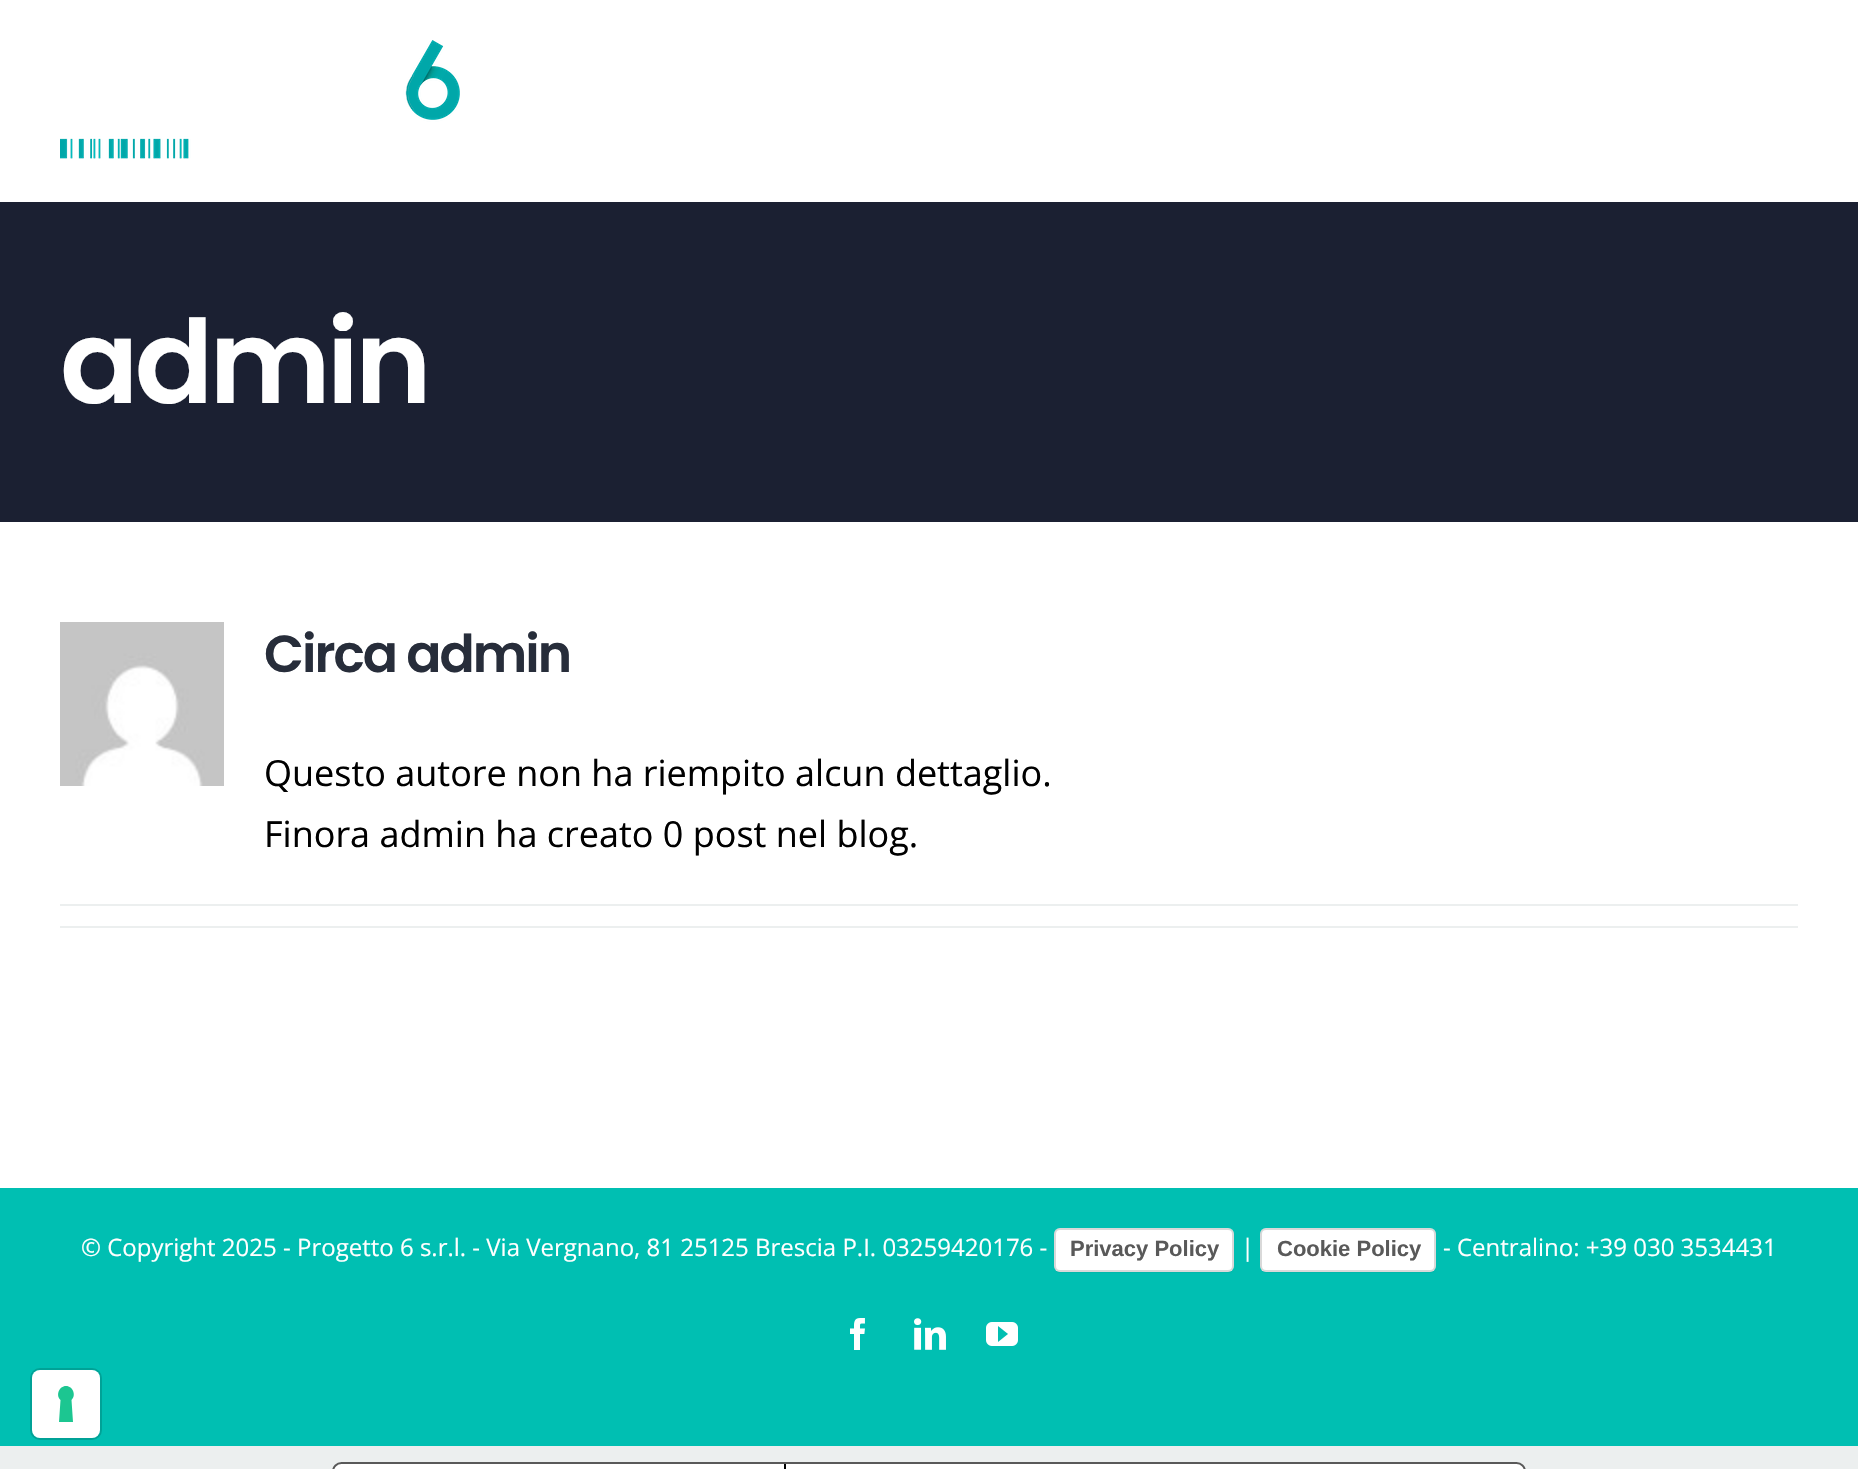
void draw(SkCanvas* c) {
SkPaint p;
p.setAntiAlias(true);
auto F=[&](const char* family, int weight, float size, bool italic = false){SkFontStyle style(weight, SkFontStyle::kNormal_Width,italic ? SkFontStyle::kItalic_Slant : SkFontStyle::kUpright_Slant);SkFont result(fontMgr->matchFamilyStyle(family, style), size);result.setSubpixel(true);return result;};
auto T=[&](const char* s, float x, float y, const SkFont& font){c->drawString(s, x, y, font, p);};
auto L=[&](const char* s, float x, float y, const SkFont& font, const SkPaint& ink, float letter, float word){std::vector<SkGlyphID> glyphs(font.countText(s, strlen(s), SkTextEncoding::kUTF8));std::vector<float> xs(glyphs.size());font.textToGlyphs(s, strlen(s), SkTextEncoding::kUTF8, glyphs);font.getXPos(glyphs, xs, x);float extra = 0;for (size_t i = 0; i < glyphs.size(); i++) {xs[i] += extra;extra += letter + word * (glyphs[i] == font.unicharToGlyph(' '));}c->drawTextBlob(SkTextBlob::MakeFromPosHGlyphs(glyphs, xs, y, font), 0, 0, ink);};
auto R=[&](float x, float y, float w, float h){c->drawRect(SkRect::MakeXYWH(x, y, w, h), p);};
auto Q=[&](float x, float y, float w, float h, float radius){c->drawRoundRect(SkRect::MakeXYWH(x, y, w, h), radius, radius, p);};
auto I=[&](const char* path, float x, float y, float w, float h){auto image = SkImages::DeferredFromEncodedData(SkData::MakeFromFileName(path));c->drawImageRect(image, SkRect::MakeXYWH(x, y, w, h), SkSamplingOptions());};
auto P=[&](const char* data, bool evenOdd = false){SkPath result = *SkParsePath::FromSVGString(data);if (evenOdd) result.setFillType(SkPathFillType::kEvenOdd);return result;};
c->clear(0xffecefef);
p.setColor(0xffffffff);
R(0,0,1858,1188);
I("1.png",60,40,400,119);
p.setColor(0xff1b2032);
R(0,202,1858,320);
auto f1 = F("Poppins",600,116);
p.setColor(0xffffffff);
L("admin",60,403,f1,p,-4,0);
I("2.png",60,622,164,164);
auto f2 = F("Poppins",600,52);
p.setColor(0xff272d3a);
L("Circa admin",264,672,f2,p,-2,0);
auto f3 = F("Open Sans",400,36);
p.setColor(0xff000000);
T("Questo autore non ha riempito alcun dettaglio.",264,786,f3);
T("Finora admin ha creato 0 post nel blog.",264,847,f3);
p.setColor(0xffecefef);
R(60,904,1738,2);
R(60,926,1738,2);
p.setColor(0xff00bfb2);
R(0,1188,1858,258);
auto f4 = F("Open Sans",400,24);
p.setColor(0xffffffff);
T("© Copyright 2025 - Progetto 6 s.r.l. - Via Vergnano, 81 25125 Brescia P.I. 03259420176 -",81,1256,f4);
p.setColor(0x26000000);
p.setMaskFilter(SkMaskFilter::MakeBlur(kNormal_SkBlurStyle, 1));
c->drawRoundRect(SkRect::MakeXYWH(1056,1232,176,40),4,4,p);
p.setMaskFilter(nullptr);
p.setColor(0xffffffff);
Q(1054,1228,180,44,6);
p.setStroke(true);
p.setStrokeWidth(2);
p.setColor(0x26000000);
c->drawRoundRect(SkRect::MakeXYWH(1055,1229,178,42),5,5,p);
auto f5 = F("Liberation Sans",700,22);
p.setStroke(false);
p.setColor(0xff595959);
T("Privacy Policy",1070,1256,f5);
p.setColor(0xffffffff);
T("|",1241,1256,f4);
p.setColor(0x26000000);
p.setMaskFilter(SkMaskFilter::MakeBlur(kNormal_SkBlurStyle, 1));
c->drawRoundRect(SkRect::MakeXYWH(1262,1232,172,40),4,4,p);
p.setMaskFilter(nullptr);
p.setColor(0xffffffff);
Q(1260,1228,176,44,6);
p.setStroke(true);
p.setColor(0x26000000);
c->drawRoundRect(SkRect::MakeXYWH(1261,1229,174,42),5,5,p);
p.setStroke(false);
p.setColor(0xff595959);
T("Cookie Policy",1277,1256,f5);
p.setColor(0xffffffff);
T("- Centralino: +39 030 3534431",1443,1256,f4);
I("3.png",850,1318,15,32);
I("4.png",914,1318,32,32);
I("5.png",986,1322,32,24);
p.setStroke(true);
p.setColor(0xff00a297);
c->drawRoundRect(SkRect::MakeXYWH(31,1369,70,70),9,9,p);
p.setStroke(false);
p.setColor(0xffffffff);
Q(32,1370,68,68,8);
p.setColor(0xff1cc691);
c->drawPath(P("M66 1386c7 0 10.5 9.5 5.5 14l1.5 22h-14l1.5-22c-5-4.5-1.5-14 5.5-14z",true),p);
p.setColor(0xffffffff);
c->drawRoundRect(SkRect::MakeXYWH(333,1463,1192,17),9,9,p);
p.setStroke(true);
p.setColor(0xff595959);
c->drawRoundRect(SkRect::MakeXYWH(333,1463,1192,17),9,9,p);
p.setStroke(false);
p.setColor(0xff000000);
R(784,1464,2,5);
}
